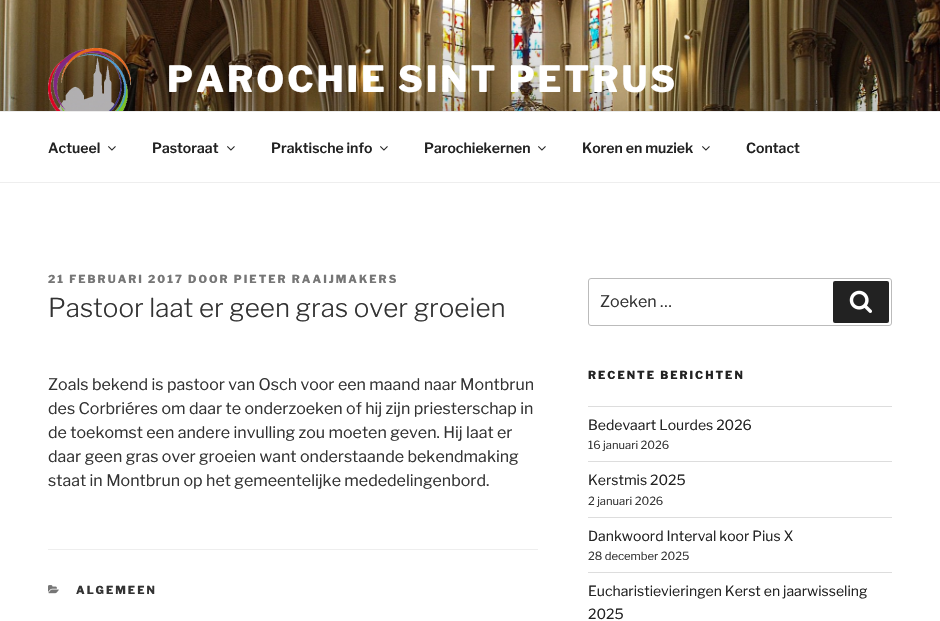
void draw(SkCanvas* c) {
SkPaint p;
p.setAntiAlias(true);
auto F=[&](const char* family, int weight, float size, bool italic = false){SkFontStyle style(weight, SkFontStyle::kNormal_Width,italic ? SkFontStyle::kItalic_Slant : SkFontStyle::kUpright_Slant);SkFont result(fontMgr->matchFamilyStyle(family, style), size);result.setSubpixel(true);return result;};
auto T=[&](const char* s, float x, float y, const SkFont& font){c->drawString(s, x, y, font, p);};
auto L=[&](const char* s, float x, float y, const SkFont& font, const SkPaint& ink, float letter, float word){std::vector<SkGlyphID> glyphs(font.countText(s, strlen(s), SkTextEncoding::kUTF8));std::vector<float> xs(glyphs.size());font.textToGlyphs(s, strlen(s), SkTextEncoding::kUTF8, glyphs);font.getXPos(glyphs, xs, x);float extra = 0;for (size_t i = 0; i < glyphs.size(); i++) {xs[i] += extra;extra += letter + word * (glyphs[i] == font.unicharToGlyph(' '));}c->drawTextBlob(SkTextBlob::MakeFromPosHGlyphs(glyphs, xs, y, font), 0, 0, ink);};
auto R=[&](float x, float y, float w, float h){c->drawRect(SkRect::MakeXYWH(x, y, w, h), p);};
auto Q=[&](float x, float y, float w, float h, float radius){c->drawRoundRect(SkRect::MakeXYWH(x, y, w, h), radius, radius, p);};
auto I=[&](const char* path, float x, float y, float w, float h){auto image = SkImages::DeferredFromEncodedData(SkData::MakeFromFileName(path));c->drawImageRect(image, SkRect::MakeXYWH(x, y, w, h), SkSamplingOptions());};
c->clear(0xffffffff);
I("1.png",0,0,940,111);
I("2.png",48,48,83,63);
auto f1 = F("Libre Franklin",100,36);
p.setColor(0xffffffff);
L("PAROCHIE SINT PETRUS",167,92,f1,p,2.9,0);
p.setColor(0xffeeeeee);
R(0,111,940,1);
R(0,182,940,1);
auto f2 = F("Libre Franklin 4",100,14);
p.setColor(0xff222222);
T("Actueel",48,153,f2);
I("3.png",108,146,8,5);
T("Pastoraat",152,153,f2);
I("3.png",227,146,8,5);
T("Praktische info",271,153,f2);
I("3.png",380,146,8,5);
T("Parochiekernen",424,153,f2);
I("3.png",538,146,8,5);
T("Koren en muziek",582,153,f2);
I("3.png",702,146,8,5);
T("Contact",746,153,f2);
auto f3 = F("Libre Franklin",100,11);
p.setColor(0xff767676);
L("21 FEBRUARI 2017 DOOR PIETER RAAIJMAKERS",48,283,f3,p,2,0);
auto f4 = F("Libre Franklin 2",100,26);
p.setColor(0xff333333);
T("Pastoor laat er geen gras over groeien",48,317,f4);
auto f5 = F("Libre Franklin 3",100,16);
T("Zoals bekend is pastoor van Osch voor een maand naar Montbrun",48,390,f5);
T("des Corbriéres om daar te onderzoeken of hij zijn priesterschap in",48,414,f5);
T("de toekomst een andere invulling zou moeten geven. Hij laat er",48,438,f5);
T("daar geen gras over groeien want onderstaande bekendmaking",48,462,f5);
T("staat in Montbrun op het gemeentelijke mededelingenbord.",48,486,f5);
p.setColor(0xffeeeeee);
R(48,549,490,1);
I("4.png",48,585,11,9);
p.setColor(0xff333333);
L("ALGEMEEN",76,594,f3,p,2,0);
p.setStroke(true);
p.setStrokeWidth(1);
p.setColor(0xffbbbbbb);
c->drawRoundRect(SkRect::MakeXYWH(588.5,278.5,303,47),2.5,2.5,p);
p.setStroke(false);
p.setColor(0xff333333);
T("Zoeken …",600,307,f5);
p.setColor(0xff222222);
Q(833,281,56,42,2);
I("5.png",849,290,23,23);
L("RECENTE BERICHTEN",588,379,f3,p,2,0);
p.setColor(0xffdddddd);
R(588,406,304,1);
R(588,461,304,1);
auto f6 = F("Libre Franklin 3",100,14);
p.setColor(0xff222222);
T("Bedevaart Lourdes 2026",588,430,f6);
auto f7 = F("Libre Franklin 3",100,11.25);
p.setColor(0xff333333);
T("16 januari 2026",588,449,f7);
p.setColor(0xffdddddd);
R(588,517,304,1);
p.setColor(0xff222222);
T("Kerstmis 2025",588,485,f6);
p.setColor(0xff333333);
T("2 januari 2026",588,505,f7);
p.setColor(0xffdddddd);
R(588,572,304,1);
p.setColor(0xff222222);
T("Dankwoord Interval koor Pius X",588,541,f6);
p.setColor(0xff333333);
T("28 december 2025",588,560,f7);
p.setColor(0xff222222);
T("Eucharistievieringen Kerst en jaarwisseling",588,596,f6);
T("2025",588,619,f6);
}
